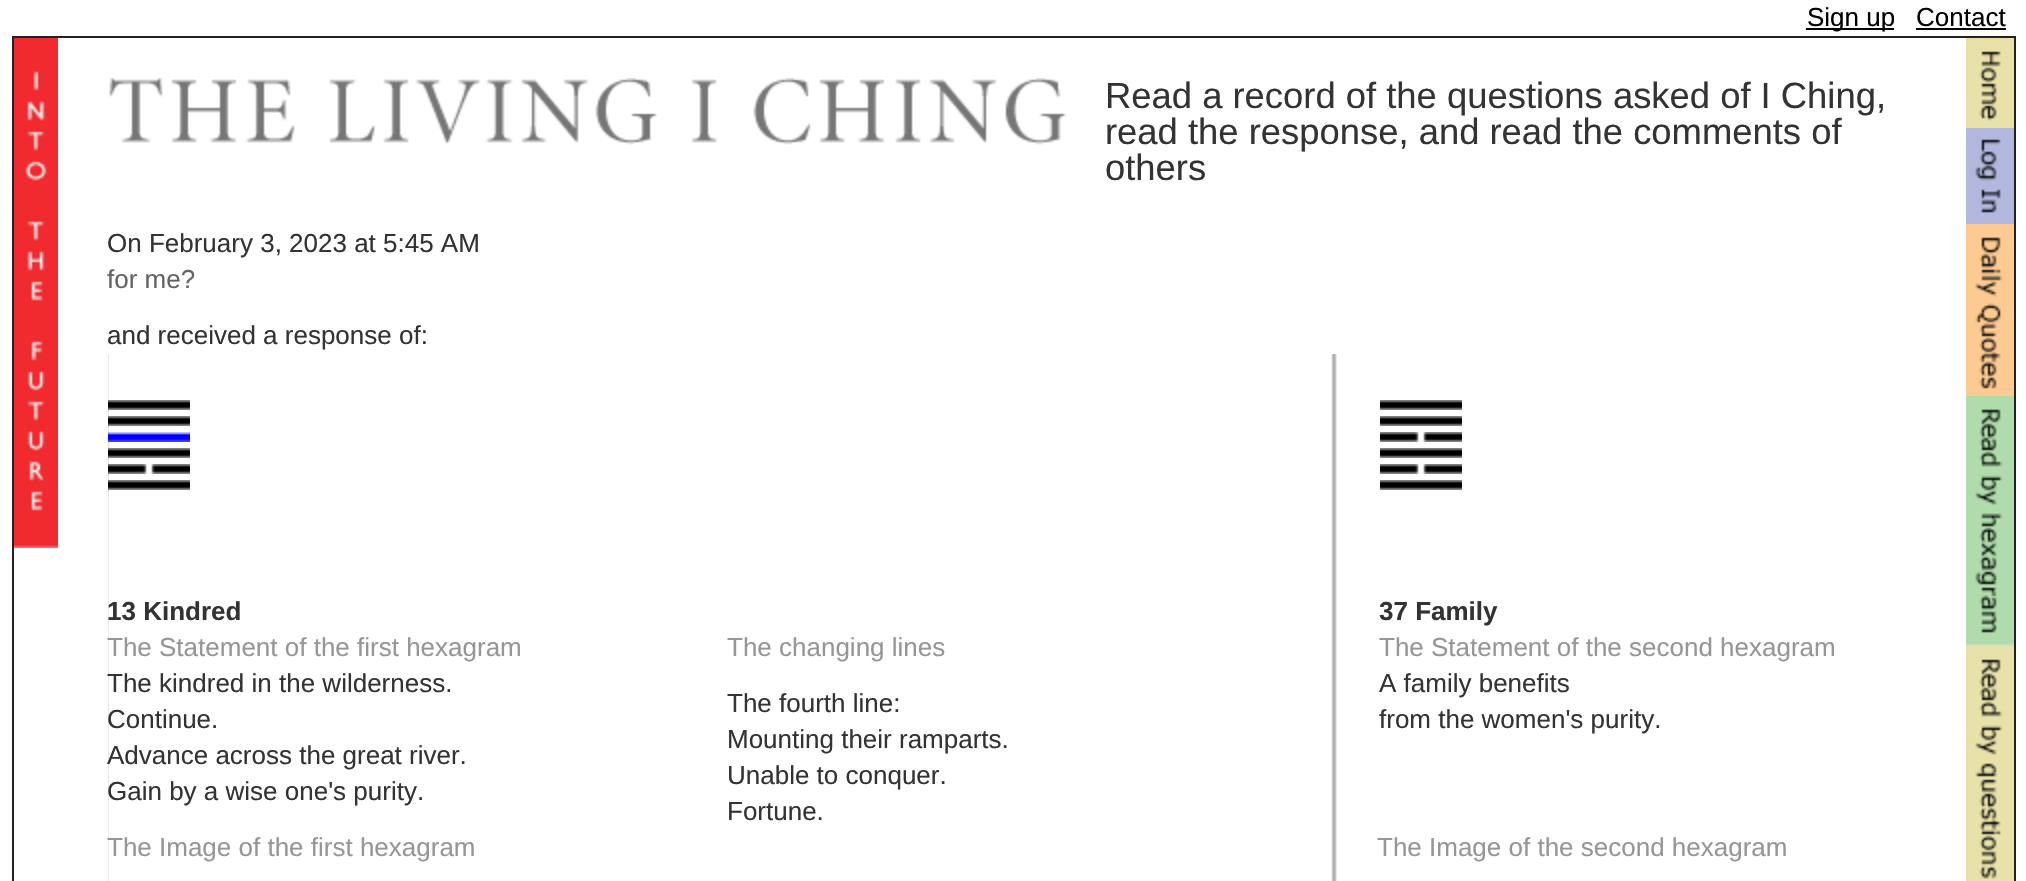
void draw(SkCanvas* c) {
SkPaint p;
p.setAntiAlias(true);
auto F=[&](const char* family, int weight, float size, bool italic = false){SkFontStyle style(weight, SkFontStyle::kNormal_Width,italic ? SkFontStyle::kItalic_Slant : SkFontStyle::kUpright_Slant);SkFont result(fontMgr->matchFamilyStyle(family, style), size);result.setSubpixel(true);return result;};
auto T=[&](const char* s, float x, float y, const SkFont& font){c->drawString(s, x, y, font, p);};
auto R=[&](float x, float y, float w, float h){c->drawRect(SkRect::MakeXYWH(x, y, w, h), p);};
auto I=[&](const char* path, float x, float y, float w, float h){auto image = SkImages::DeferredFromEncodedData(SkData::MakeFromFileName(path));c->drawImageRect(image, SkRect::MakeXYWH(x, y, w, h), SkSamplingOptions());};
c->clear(0xffffffff);
p.setColor(0xff000000);
R(1806,28,88,2);
auto f1 = F("Liberation Sans",400,26);
T("Sign up",1807,26,f1);
T("Contact",1916,26,f1);
R(1916,28,90,2);
p.setStroke(true);
p.setStrokeWidth(2);
p.setColor(0xff222222);
c->drawRect(SkRect::MakeXYWH(13,37,2002,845),p);
I("1.png",14,38,44,510);
I("2.png",109,78,957,67);
auto f2 = F("Liberation Sans",400,36.4);
p.setStroke(false);
p.setColor(0xff333333);
T("Read a record of the questions asked of I Ching,",1105,108,f2);
T("read the response, and read the comments of",1105,144,f2);
T("others",1105,180,f2);
T("On February 3, 2023 at 5:45 AM",107,252,f1);
p.setColor(0xff646464);
T("for me?",107,288,f1);
p.setColor(0xff333333);
T("and received a response of:",107,344,f1);
I("3.png",108,354,1229,527);
I("4.png",108,400,82,10);
I("4.png",108,416,82,10);
I("5.png",108,432,82,10);
I("4.png",108,448,82,10);
I("6.png",108,464,82,10);
I("4.png",108,480,82,10);
auto f3 = F("Liberation Sans",700,26);
T("13 Kindred",107,620,f3);
p.setColor(0xff969696);
T("The Statement of the first hexagram",107,656,f1);
p.setColor(0xff333333);
T("The kindred in the wilderness.",107,692,f1);
T("Continue.",107,728,f1);
T("Advance across the great river.",107,764,f1);
T("Gain by a wise one's purity.",107,800,f1);
p.setColor(0xff969696);
T("The changing lines",727,656,f1);
p.setColor(0xff333333);
T("The fourth line:",727,712,f1);
T("Mounting their ramparts.",727,748,f1);
T("Unable to conquer.",727,784,f1);
T("Fortune.",727,820,f1);
I("7.png",1380,400,82,10);
I("7.png",1380,416,82,10);
I("8.png",1380,432,82,10);
I("7.png",1380,448,82,10);
I("8.png",1380,464,82,10);
I("7.png",1380,480,82,10);
T("37 Family",1379,620,f3);
p.setColor(0xff969696);
T("The Statement of the second hexagram",1379,656,f1);
p.setColor(0xff333333);
T("A family benefits",1379,692,f1);
T("from the women's purity.",1379,728,f1);
p.setColor(0xff969696);
T("The Image of the first hexagram",107,856,f1);
T("The Image of the second hexagram",1377,856,f1);
I("9.png",1966,38,48,90);
I("10.png",1966,128,48,96);
I("11.png",1966,224,48,172);
I("12.png",1966,396,48,250);
I("13.png",1966,646,48,235);
}
